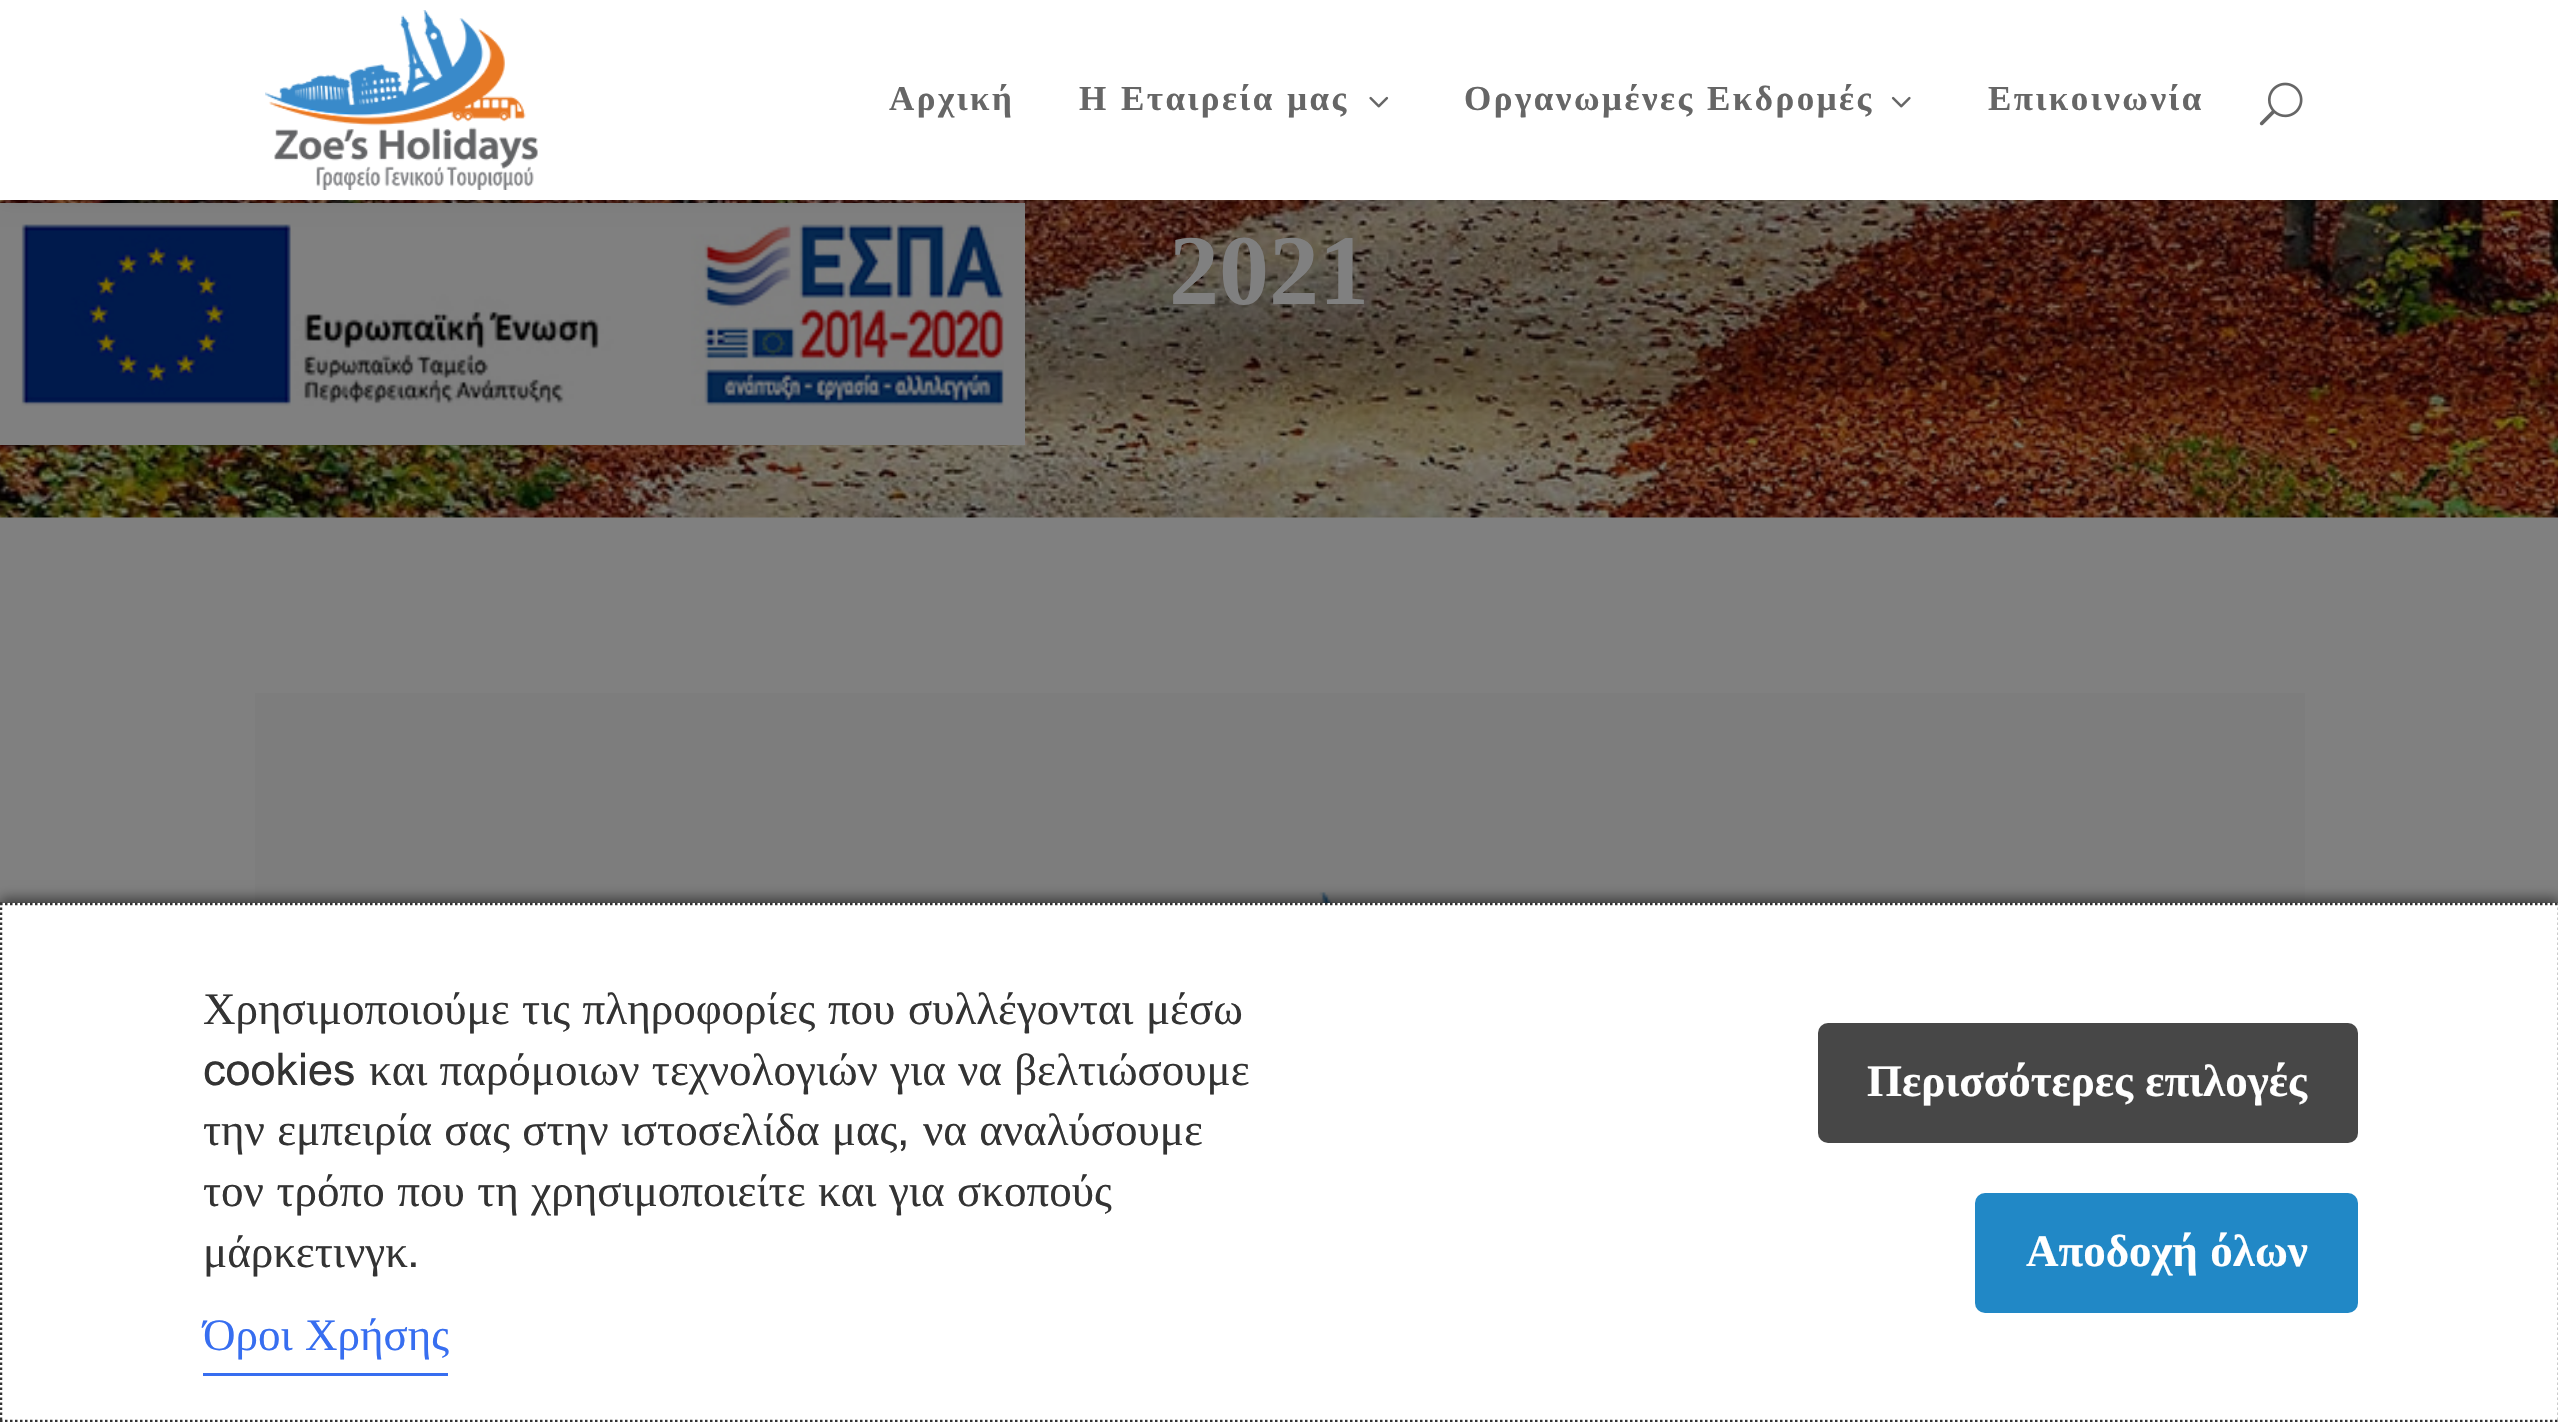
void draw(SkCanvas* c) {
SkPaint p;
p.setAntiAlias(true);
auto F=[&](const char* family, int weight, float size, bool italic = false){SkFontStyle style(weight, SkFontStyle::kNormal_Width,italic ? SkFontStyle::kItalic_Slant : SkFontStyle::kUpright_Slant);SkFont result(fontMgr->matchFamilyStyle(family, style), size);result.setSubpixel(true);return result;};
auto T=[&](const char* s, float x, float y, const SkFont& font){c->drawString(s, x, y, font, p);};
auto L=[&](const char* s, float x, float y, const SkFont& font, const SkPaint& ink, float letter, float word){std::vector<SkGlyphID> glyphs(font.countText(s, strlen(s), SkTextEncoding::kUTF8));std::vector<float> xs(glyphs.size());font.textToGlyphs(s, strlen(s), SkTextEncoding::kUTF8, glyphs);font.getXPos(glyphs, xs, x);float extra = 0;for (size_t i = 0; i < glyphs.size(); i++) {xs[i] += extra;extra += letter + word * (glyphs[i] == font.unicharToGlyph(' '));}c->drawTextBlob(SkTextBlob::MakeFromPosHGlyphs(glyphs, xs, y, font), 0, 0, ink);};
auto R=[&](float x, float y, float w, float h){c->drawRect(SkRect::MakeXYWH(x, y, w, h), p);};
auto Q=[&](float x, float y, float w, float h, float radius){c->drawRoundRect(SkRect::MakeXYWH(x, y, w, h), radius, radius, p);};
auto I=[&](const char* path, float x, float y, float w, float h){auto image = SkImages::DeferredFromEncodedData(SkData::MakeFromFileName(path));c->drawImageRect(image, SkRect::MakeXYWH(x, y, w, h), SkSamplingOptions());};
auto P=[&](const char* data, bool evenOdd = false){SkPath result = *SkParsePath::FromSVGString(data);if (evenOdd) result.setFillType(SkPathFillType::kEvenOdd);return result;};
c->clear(0xff808080);
I("6.png",0,200,2558,318);
p.setColor(0xff808080);
R(0,203,1025,242);
I("5.png",21,224,983,182);
p.setColor(0x1a000000);
p.setMaskFilter(SkMaskFilter::MakeBlur(kNormal_SkBlurStyle, 9));
c->drawRect(SkRect::MakeXYWH(0,0,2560,200),p);
p.setMaskFilter(nullptr);
p.setColor(0xffffffff);
R(0,0,2558,200);
I("1.png",265,10,273,180);
auto f1 = F("Liberation Serif",700,35);
p.setColor(0xff666666);
L("Αρχική",889,110,f1,p,2.5,0);
L("Η Εταιρεία μας",1079,110,f1,p,2.5,1);
I("2.png",1369,96,20,12);
L("Οργανωμένες Εκδρομές",1464,110,f1,p,2.5,1);
I("3.png",1891,96,20,12);
L("Επικοινωνία",1988,110,f1,p,2.5,0);
I("4.png",2259,82,44,44);
auto f2 = F("Liberation Serif",700,100);
p.setColor(0xff808080);
T("2021",1169,304,f2);
p.setColor(0xff7d7d7d);
R(255,693,2050,210);
I("7.png",1280,892,53,11);
p.setColor(0x80000000);
p.setMaskFilter(SkMaskFilter::MakeBlur(kNormal_SkBlurStyle, 6));
c->drawRect(SkRect::MakeXYWH(0,898,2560,520),p);
p.setMaskFilter(nullptr);
p.setColor(0xffffffff);
R(0,903,2558,519);
p.setStroke(true);
p.setStrokeWidth(2.5);
p.setColor(0xff333333);
p.setPathEffect(SkDashPathEffect::Make({{2.5f,2.5f}}, 0));
c->drawPath(P("M0 904h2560"),p);
p.setPathEffect(nullptr);
p.setPathEffect(SkDashPathEffect::Make({{2.5f,2.5f}}, 0));
c->drawPath(P("M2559 902.5v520"),p);
p.setPathEffect(nullptr);
p.setPathEffect(SkDashPathEffect::Make({{2.5f,2.5f}}, 0));
c->drawPath(P("M0 1421h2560"),p);
p.setPathEffect(nullptr);
p.setPathEffect(SkDashPathEffect::Make({{2.5f,2.5f}}, 0));
c->drawPath(P("M1 902.5v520"),p);
p.setPathEffect(nullptr);
auto f3 = F("Liberation Serif",400,45);
p.setStroke(false);
L("Χρησιμοποιούμε τις πληροφορίες που συλλέγονται μέσω",203,1024,f3,p,0,1.25);
auto f4 = F("Arial",400,45);
T("cookies",203,1085,f4);
L("και παρόμοιων τεχνολογιών για να βελτιώσουμε",369,1085,f3,p,0,1);
L("την εμπειρία σας στην ιστοσελίδα μας",203,1145,f3,p,0,1);
T(",",897,1145,f4);
L("να αναλύσουμε",923,1145,f3,p,0,1);
L("τον τρόπο που τη χρησιμοποιείτε και για σκοπούς",203,1206,f3,p,0,1.25);
T("μάρκετινγκ",203,1267,f3);
T(".",407,1267,f4);
p.setColor(0xff376ef0);
L("Όροι Χρήσης",203,1350,f3,p,0,1.25);
R(203,1373,245,3);
p.setColor(0xff474747);
Q(1818,1023,540,120,10);
auto f5 = F("Liberation Serif",700,45);
p.setColor(0xffffffff);
L("Περισσότερες επιλογές",1867,1096,f5,p,0,1);
p.setColor(0xff2188c6);
Q(1975,1193,383,120,10);
p.setColor(0xffffffff);
L("Αποδοχή όλων",2026,1266,f5,p,0,1.25);
}
